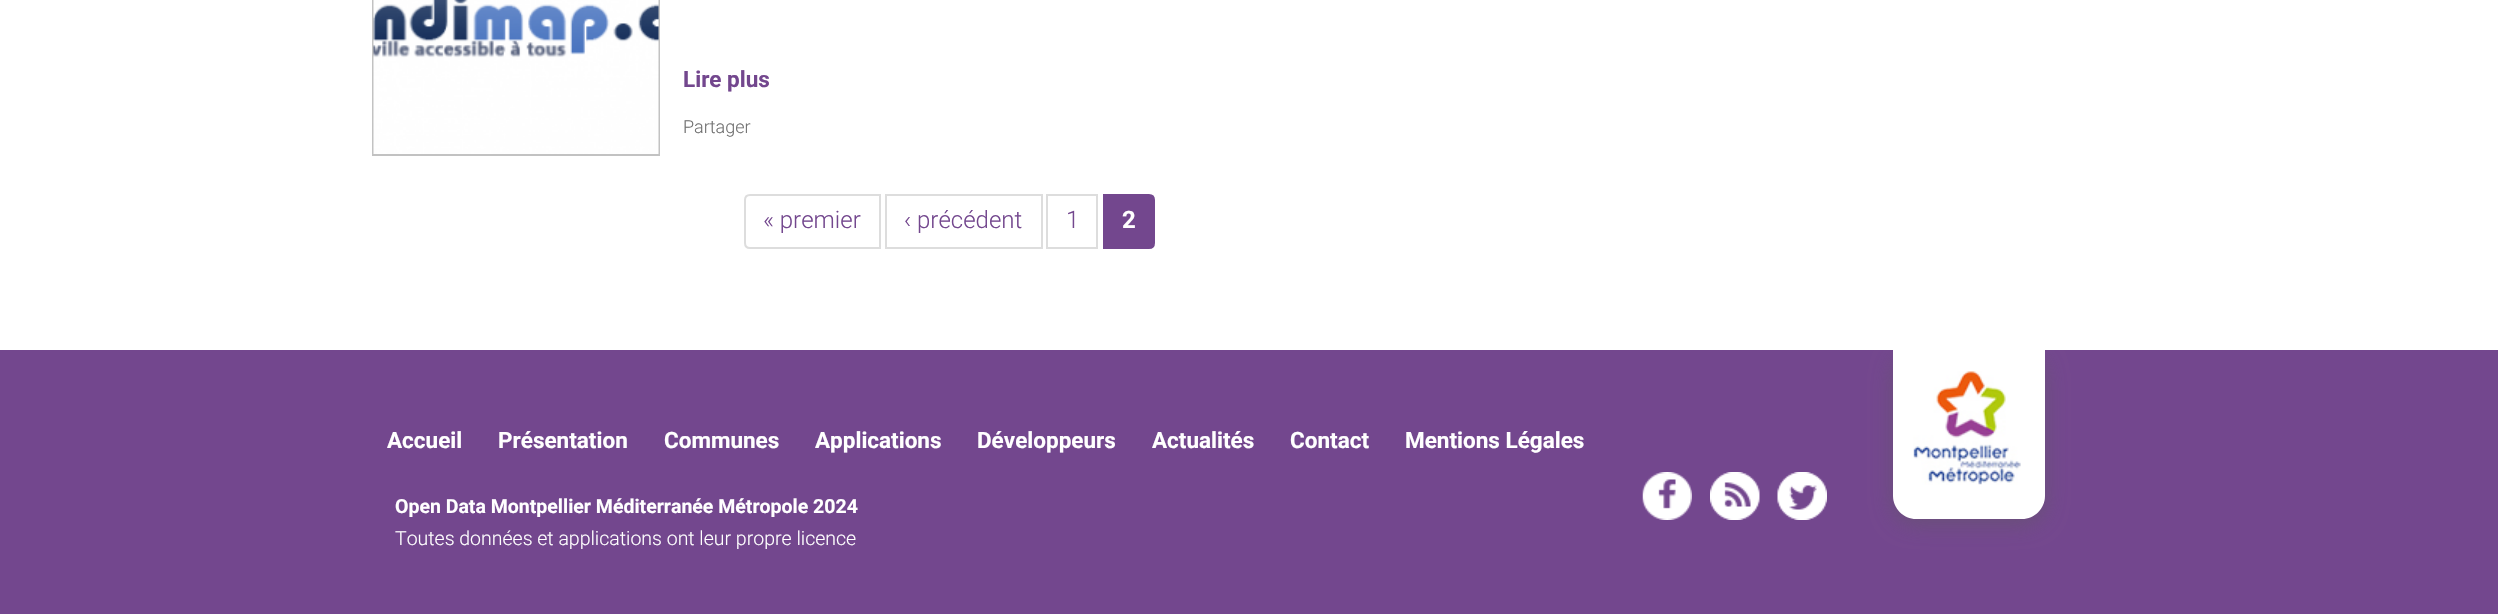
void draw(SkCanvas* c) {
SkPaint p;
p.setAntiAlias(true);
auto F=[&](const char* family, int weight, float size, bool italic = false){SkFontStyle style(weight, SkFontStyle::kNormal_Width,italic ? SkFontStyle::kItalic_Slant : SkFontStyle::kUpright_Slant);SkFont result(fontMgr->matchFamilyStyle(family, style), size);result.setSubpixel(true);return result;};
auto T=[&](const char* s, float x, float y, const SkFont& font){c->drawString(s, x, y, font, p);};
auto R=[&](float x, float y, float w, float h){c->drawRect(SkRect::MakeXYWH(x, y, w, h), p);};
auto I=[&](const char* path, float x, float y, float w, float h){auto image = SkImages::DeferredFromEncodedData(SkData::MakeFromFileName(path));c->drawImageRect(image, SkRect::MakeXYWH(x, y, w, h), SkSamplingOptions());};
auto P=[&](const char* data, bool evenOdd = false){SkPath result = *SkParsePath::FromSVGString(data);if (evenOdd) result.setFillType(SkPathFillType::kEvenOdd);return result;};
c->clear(0xffffffff);
p.setStroke(true);
p.setStrokeWidth(2);
p.setColor(0xffc2c2c2);
c->drawRect(SkRect::MakeXYWH(373,-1,286,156),p);
I("1.png",373,0,286,154);
auto f1 = F("Roboto",700,22.5);
p.setStroke(false);
p.setColor(0xff73478e);
T("Lire plus",683,87,f1);
auto f2 = F("Roboto",300,18);
p.setColor(0xff707070);
T("Partager",683,133,f2);
p.setStroke(true);
p.setColor(0xffdddddd);
c->drawPath(P("M750 195h130v53h-130c-3 0-5-2-5-5v-43c0-3 2-5 5-5z"),p);
auto f3 = F("Roboto",300,24);
p.setStroke(false);
p.setColor(0xff73478e);
T("« premier",763,228,f3);
p.setStroke(true);
p.setColor(0xffdddddd);
c->drawRect(SkRect::MakeXYWH(886,195,156,53),p);
p.setStroke(false);
p.setColor(0xff73478e);
T("‹ précédent",904,228,f3);
p.setStroke(true);
p.setColor(0xffdddddd);
c->drawRect(SkRect::MakeXYWH(1047,195,50,53),p);
p.setStroke(false);
p.setColor(0xff73478e);
T("1",1066,228,f3);
c->drawPath(P("M1104 195h45c3 0 5 2 5 5v43c0 3-2 5-5 5h-45z"),p);
p.setStroke(true);
c->drawPath(P("M1104 195h45c3 0 5 2 5 5v43c0 3-2 5-5 5h-45z"),p);
auto f4 = F("Roboto",700,24);
p.setStroke(false);
p.setColor(0xffffffff);
T("2",1122,228,f4);
p.setColor(0xff73478e);
R(0,350,2498,264);
p.setColor(0xffffffff);
T("Accueil",387,448,f1);
T("Présentation",498,448,f1);
T("Communes",664,448,f1);
T("Applications",815,448,f1);
T("Développeurs",977,448,f1);
T("Actualités",1152,448,f1);
T("Contact",1290,448,f1);
T("Mentions Légales",1405,448,f1);
I("2.png",1642,472,50,48);
I("3.png",1710,472,50,48);
I("4.png",1777,472,50,48);
c->save();
c->clipRect(SkRect::MakeXYWH(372,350,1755,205));
p.setColor(0x735a5a5a);
p.setMaskFilter(SkMaskFilter::MakeBlur(kNormal_SkBlurStyle, 10.5));
c->drawRoundRect(SkRect::MakeXYWH(1893,354,152,170),23,23,p);
p.setMaskFilter(nullptr);
c->restore();
p.setColor(0xffffffff);
c->drawPath(P("M1893 350h152v146c0 12.5-10.5 23-23 23h-106c-12.5 0-23-10.5-23-23z"),p);
I("5.png",1913,371,108,114);
auto f5 = F("Roboto",700,19.5);
T("Open Data Montpellier Méditerranée Métropole 2024",395,513,f5);
auto f6 = F("Roboto",300,19.5);
T("Toutes données et applications ont leur propre licence",395,545,f6);
}
